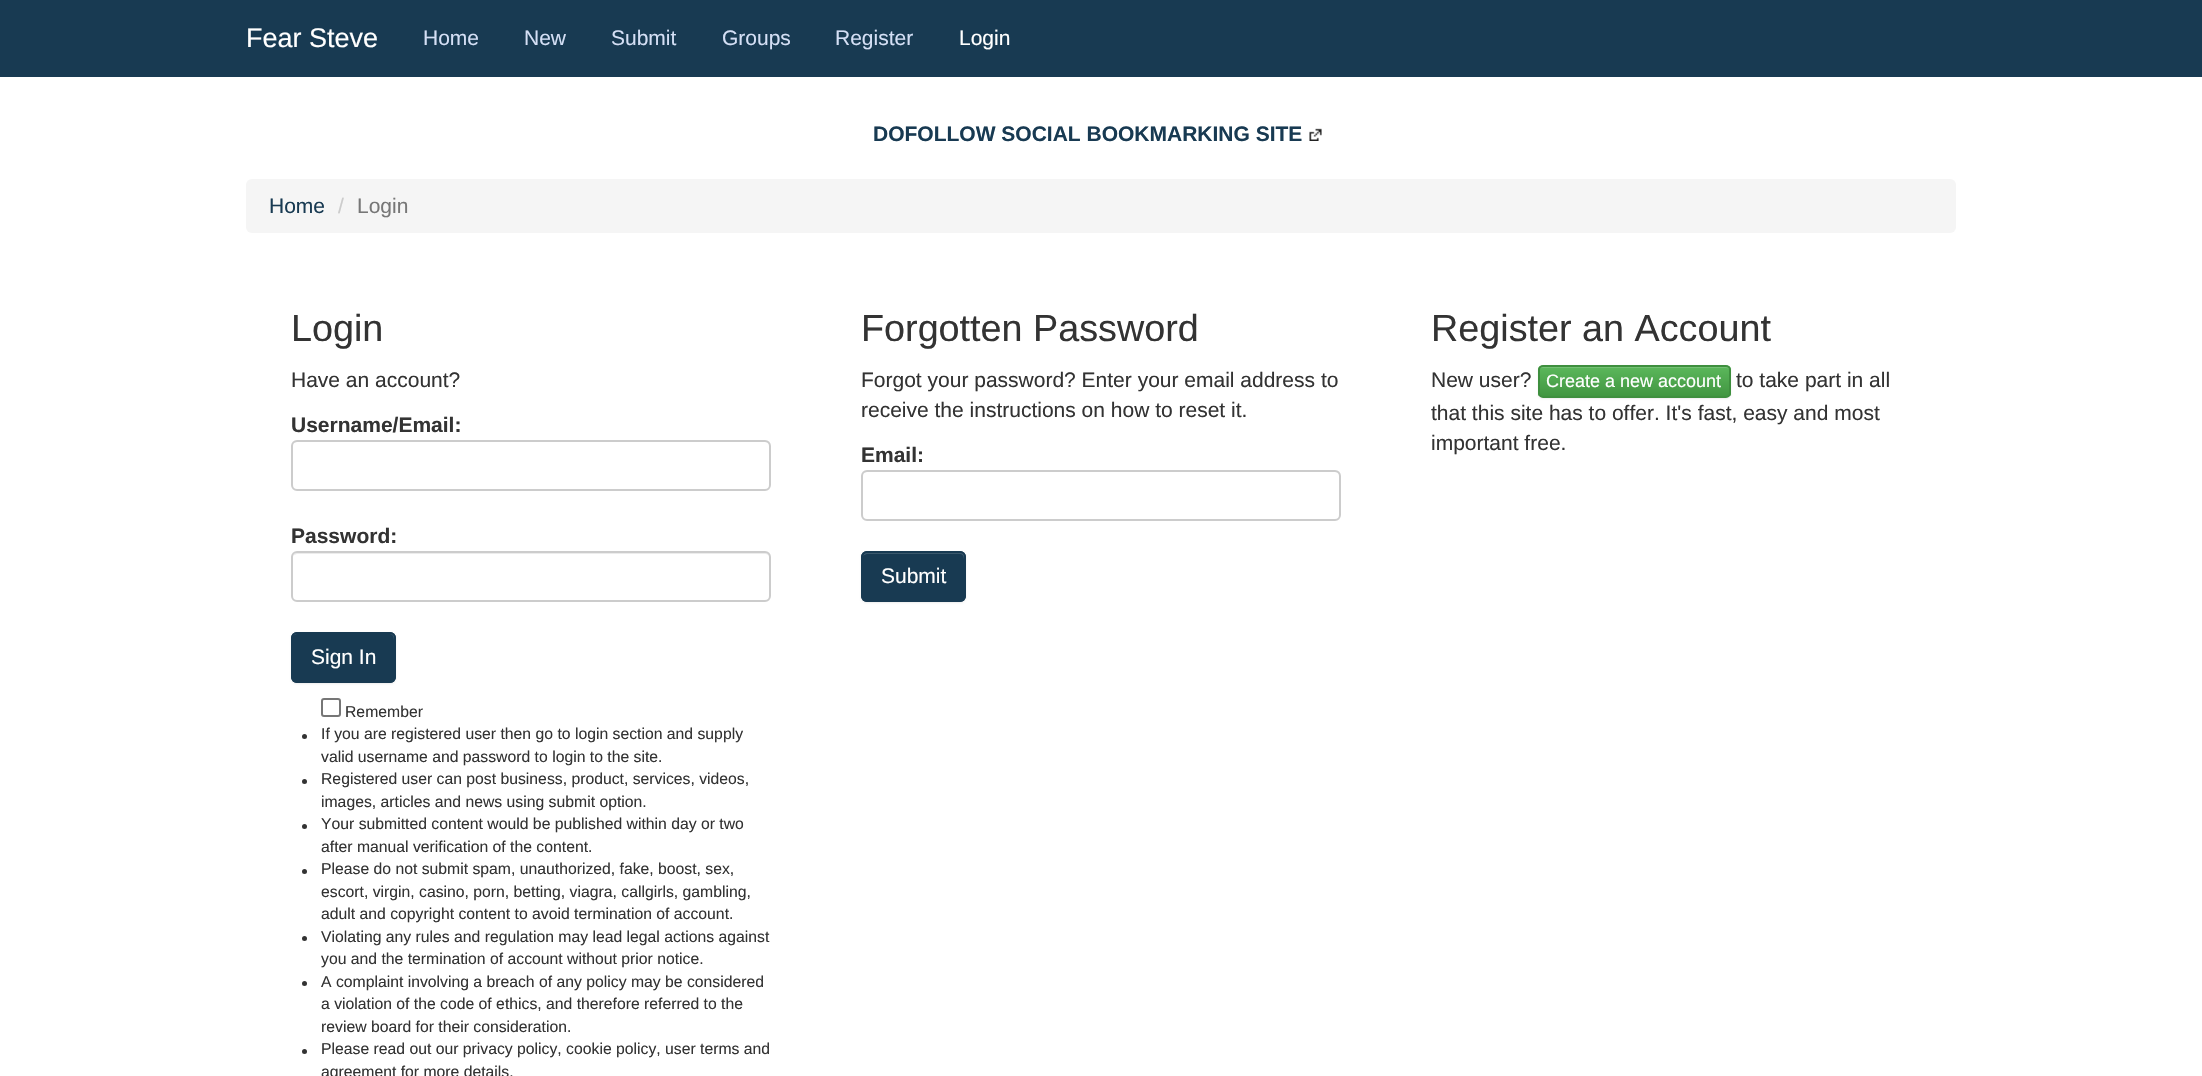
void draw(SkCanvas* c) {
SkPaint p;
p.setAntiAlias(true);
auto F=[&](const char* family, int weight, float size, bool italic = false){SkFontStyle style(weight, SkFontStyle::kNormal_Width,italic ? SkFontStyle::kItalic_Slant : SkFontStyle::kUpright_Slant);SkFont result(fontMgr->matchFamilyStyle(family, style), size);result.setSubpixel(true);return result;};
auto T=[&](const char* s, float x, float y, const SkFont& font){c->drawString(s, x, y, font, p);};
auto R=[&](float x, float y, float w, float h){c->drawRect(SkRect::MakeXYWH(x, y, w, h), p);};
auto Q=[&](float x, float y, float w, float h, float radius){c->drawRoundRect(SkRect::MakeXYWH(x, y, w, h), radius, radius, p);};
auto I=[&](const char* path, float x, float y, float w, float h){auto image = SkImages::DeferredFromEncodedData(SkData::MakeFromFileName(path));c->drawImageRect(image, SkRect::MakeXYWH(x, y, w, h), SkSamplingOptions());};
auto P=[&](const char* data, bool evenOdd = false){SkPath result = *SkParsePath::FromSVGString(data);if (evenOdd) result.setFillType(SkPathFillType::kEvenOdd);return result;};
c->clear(0xffffffff);
p.setColor(0xff183a52);
R(0,0,2202,77);
auto f1 = F("Liberation Sans",400,27);
p.setColor(0xffffffff);
T("Fear Steve",246,47,f1);
auto f2 = F("Liberation Sans",400,21);
p.setColor(0xffd4dff5);
T("Home",423,45,f2);
T("New",524,45,f2);
T("Submit",611,45,f2);
T("Groups",722,45,f2);
T("Register",835,45,f2);
p.setColor(0xffffffff);
T("Login",959,45,f2);
auto f3 = F("Liberation Sans",700,21);
p.setColor(0xff183a52);
T("DOFOLLOW SOCIAL BOOKMARKING SITE",873,141,f3);
I("1.png",1309,128,13,13);
p.setColor(0xfff5f5f5);
Q(246,179,1710,54,6);
p.setColor(0xff183a52);
T("Home",269,213,f2);
p.setColor(0xffcccccc);
T("/",338,213,f2);
p.setColor(0xff777777);
T("Login",357,213,f2);
auto f4 = F("Liberation Sans",400,37.75);
p.setColor(0xff333333);
T("Login",291,341,f4);
T("Have an account?",291,387,f2);
T("Username/Email:",291,432,f3);
p.setColor(0xffececec);
c->drawPath(P("M297 442h468c2 0 5 3 5 5v-1c0-3-2-5-5-5h-467c-2 0-4 1-5 3c1-1 3-2 4-2z"),p);
p.setStroke(true);
p.setStrokeWidth(2);
p.setColor(0xffcccccc);
c->drawRoundRect(SkRect::MakeXYWH(292,441,478,49),5,5,p);
p.setStroke(false);
p.setColor(0xff333333);
T("Password:",291,543,f3);
p.setColor(0xffececec);
c->drawPath(P("M297 554h468c2 0 5 2 5 4v-1c0-3-2-5-5-5h-467c-2 0-4 2-5 4c1-1 3-2 4-2z"),p);
p.setStroke(true);
p.setColor(0xffcccccc);
c->drawRoundRect(SkRect::MakeXYWH(292,552,478,49),5,5,p);
p.setStroke(false);
p.setColor(0x12000000);
p.setMaskFilter(SkMaskFilter::MakeBlur(kNormal_SkBlurStyle, 1));
c->drawRoundRect(SkRect::MakeXYWH(291,633,105,51),6,6,p);
p.setMaskFilter(nullptr);
p.setColor(0xff183a52);
Q(291,632,105,51,6);
p.setColor(0xff3b586c);
c->drawPath(P("M297 634h93c5 0 4 9 4 12v33c1-1 1-2 1-3v-38c0-3-2-5-5-5h-92c-2 0-4 1-5 3c1-1 3-2 4-2z"),p);
p.setStroke(true);
p.setColor(0xff183a52);
c->drawRoundRect(SkRect::MakeXYWH(292,633,103,49),5,5,p);
p.setStroke(false);
p.setColor(0xffffffff);
T("Sign In",311,664,f2);
p.setStroke(true);
p.setColor(0xff767676);
c->drawRoundRect(SkRect::MakeXYWH(322,699,18,17),2,2,p);
auto f5 = F("Liberation Sans",400,15.75);
p.setStroke(false);
p.setColor(0xff333333);
T("Remember",345,717,f5);
c->drawCircle(304.5,736.5,2.5,p);
T("If you are registered user then go to login section and supply",321,739,f5);
T("valid username and password to login to the site.",321,762,f5);
c->drawCircle(304.5,781.5,2.5,p);
T("Registered user can post business, product, services, videos,",321,784,f5);
T("images, articles and news using submit option.",321,807,f5);
c->drawCircle(304.5,826.5,2.5,p);
T("Your submitted content would be published within day or two",321,829,f5);
T("after manual verification of the content.",321,852,f5);
c->drawCircle(304.5,871.5,2.5,p);
T("Please do not submit spam, unauthorized, fake, boost, sex,",321,874,f5);
T("escort, virgin, casino, porn, betting, viagra, callgirls, gambling,",321,897,f5);
T("adult and copyright content to avoid termination of account.",321,919,f5);
c->drawCircle(304.5,938.5,2.5,p);
T("Violating any rules and regulation may lead legal actions against",321,942,f5);
T("you and the termination of account without prior notice.",321,964,f5);
c->drawCircle(304.5,983.5,2.5,p);
T("A complaint involving a breach of any policy may be considered",321,987,f5);
T("a violation of the code of ethics, and therefore referred to the",321,1009,f5);
T("review board for their consideration.",321,1032,f5);
c->drawCircle(304.5,1051.5,2.5,p);
T("Please read out our privacy policy, cookie policy, user terms and",321,1054,f5);
T("agreement for more details.",321,1077,f5);
T("Forgotten Password",861,341,f4);
T("Forgot your password? Enter your email address to",861,387,f2);
T("receive the instructions on how to reset it.",861,417,f2);
T("Email:",861,462,f3);
p.setColor(0xffececec);
c->drawPath(P("M867 472h468c2 0 5 3 5 5v-1c0-3-2-5-5-5h-467c-2 0-4 1-5 3c1-1 3-2 4-2z"),p);
p.setStroke(true);
p.setColor(0xffcccccc);
c->drawRoundRect(SkRect::MakeXYWH(862,471,478,49),5,5,p);
p.setStroke(false);
p.setColor(0x12000000);
p.setMaskFilter(SkMaskFilter::MakeBlur(kNormal_SkBlurStyle, 1));
c->drawRoundRect(SkRect::MakeXYWH(861,552,105,51),6,6,p);
p.setMaskFilter(nullptr);
p.setColor(0xff183a52);
Q(861,551,105,51,6);
p.setColor(0xff3b586c);
c->drawPath(P("M867 554h93c5 0 4 8 4 10v34c1-1 1-2 1-3v-38c0-3-2-5-5-5h-92c-2 0-4 2-5 4c1-1 3-2 4-2z"),p);
p.setStroke(true);
p.setColor(0xff183a52);
c->drawRoundRect(SkRect::MakeXYWH(862,552,103,49),5,5,p);
p.setStroke(false);
p.setColor(0xffffffff);
T("Submit",881,583,f2);
p.setColor(0xff333333);
T("Register an Account",1431,341,f4);
T("New user?",1431,387,f2);
p.setColor(0x12000000);
p.setMaskFilter(SkMaskFilter::MakeBlur(kNormal_SkBlurStyle, 1));
c->drawRoundRect(SkRect::MakeXYWH(1538,366,193,33),5,5,p);
p.setMaskFilter(nullptr);
c->save();
c->clipPath(P("M1543 365h183c3 0 5 2 5 5v23c0 3-2 5-5 5h-183c-3 0-5-2-5-5v-23c0-3 2-5 5-5z"),true);
{
const SkColor colors[] = {0xff5cb85c,0xff419641};
const float stops[] = {0,1};
const SkPoint ends[] = {{1634,366}, {1634,396}};
p.setShader(SkGradientShader::MakeLinear(ends, colors, stops, 2, SkTileMode::kClamp));
p.setAlpha(255);
}
R(1538,366,193,30);
c->restore();
p.setShader(nullptr);
p.setColor(0xff74c174);
c->drawPath(P("M1542 368h184c2 0 4 1 4 2c0-2-1-4-3-4h-185c-2 0-3 2-3 4c0-1 1-2 3-2z"),p);
p.setStroke(true);
p.setColor(0xff3e8f3e);
c->drawRoundRect(SkRect::MakeXYWH(1539,366,191,31),4,4,p);
auto f6 = F("Liberation Sans",400,18);
p.setStroke(false);
p.setColor(0xffffffff);
T("Create a new account",1546,387,f6);
p.setColor(0xff333333);
T("to take part in all",1736,387,f2);
T("that this site has to offer. It's fast, easy and most",1431,420,f2);
T("important free.",1431,450,f2);
}
